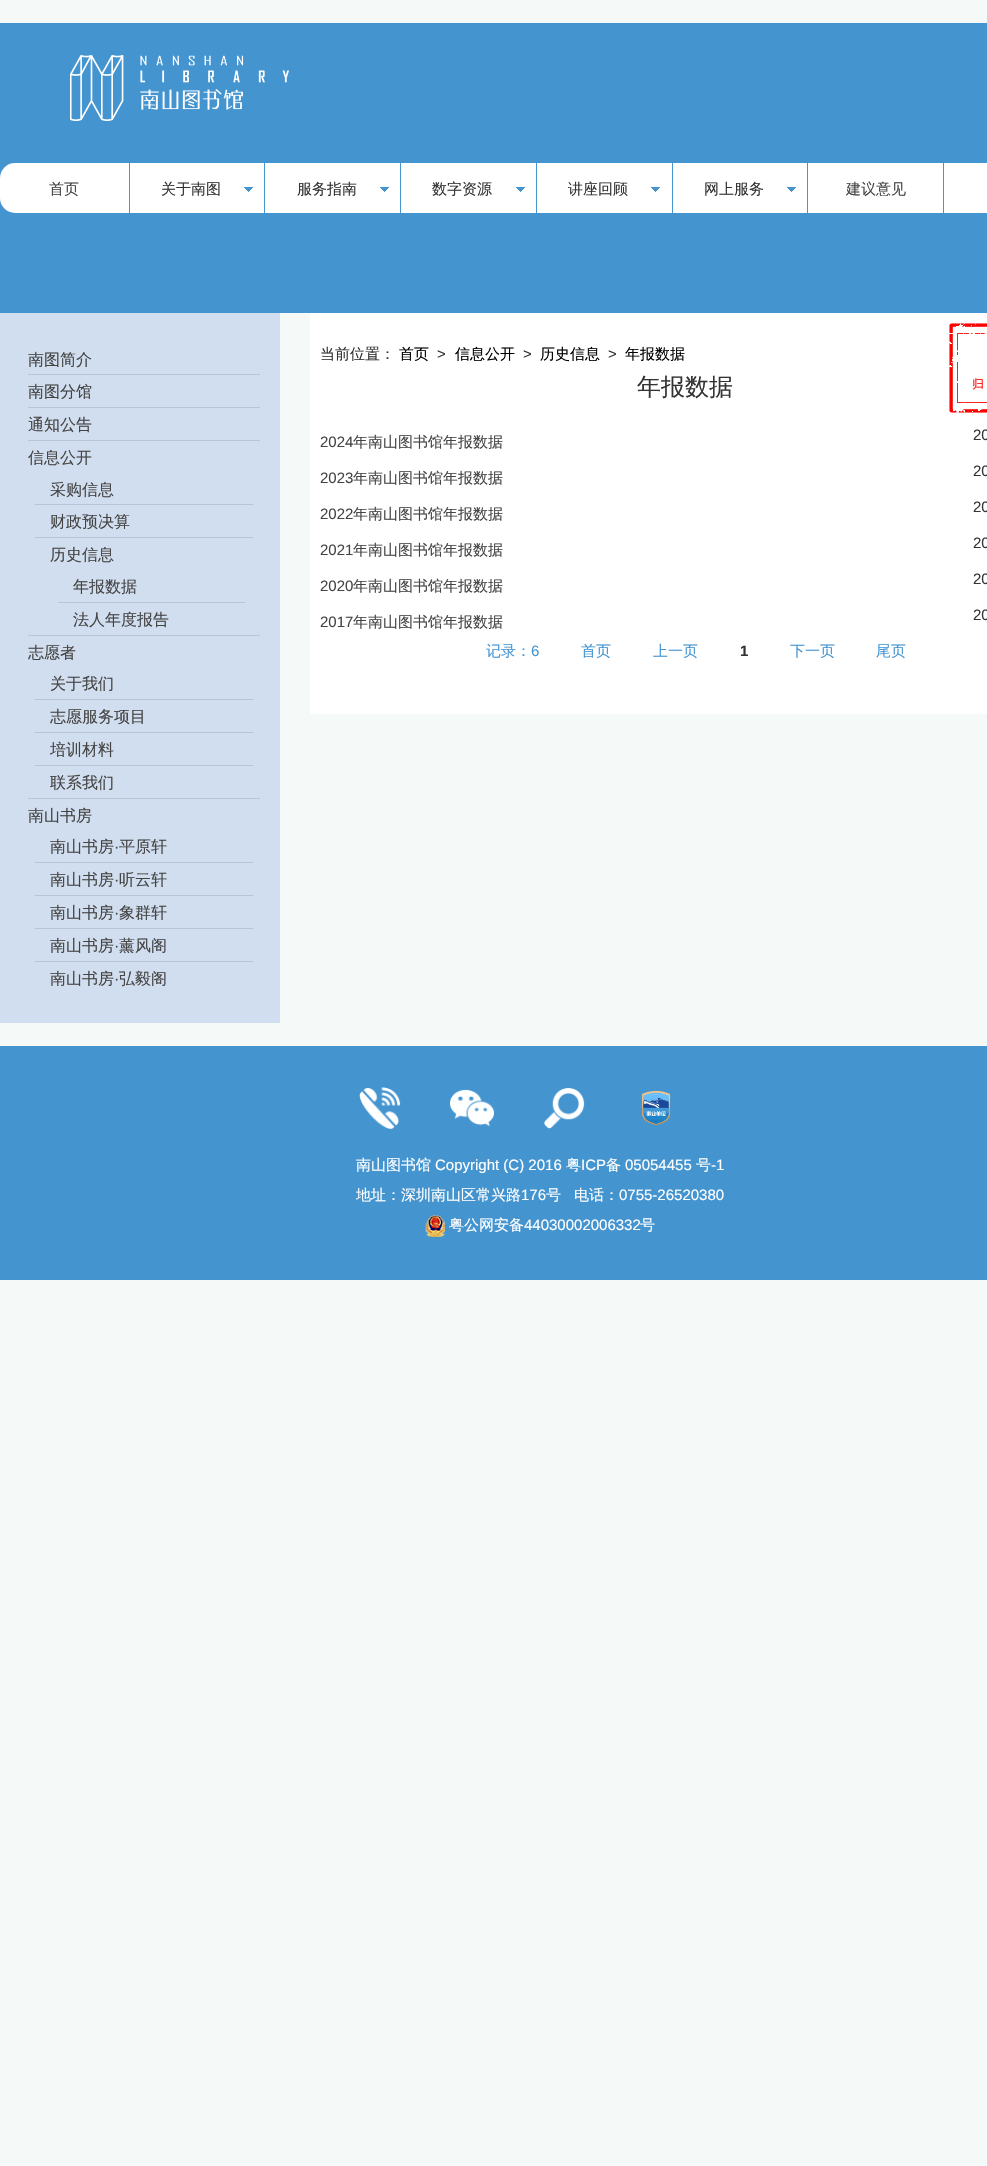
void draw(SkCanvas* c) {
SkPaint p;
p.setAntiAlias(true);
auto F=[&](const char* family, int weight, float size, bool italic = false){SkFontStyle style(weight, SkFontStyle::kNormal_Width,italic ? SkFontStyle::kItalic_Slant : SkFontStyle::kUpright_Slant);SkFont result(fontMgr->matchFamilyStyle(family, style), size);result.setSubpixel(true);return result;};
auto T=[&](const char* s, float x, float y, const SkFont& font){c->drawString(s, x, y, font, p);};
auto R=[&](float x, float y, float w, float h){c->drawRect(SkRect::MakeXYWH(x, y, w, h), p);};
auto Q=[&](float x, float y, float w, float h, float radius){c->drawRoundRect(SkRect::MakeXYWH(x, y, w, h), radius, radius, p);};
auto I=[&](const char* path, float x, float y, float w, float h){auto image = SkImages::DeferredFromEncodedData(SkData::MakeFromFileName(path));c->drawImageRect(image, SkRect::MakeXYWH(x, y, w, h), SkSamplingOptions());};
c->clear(0xfff5f9f8);
p.setColor(0xff4494d0);
R(0,23,987,290);
I("1.png",70,55,219,66);
p.setColor(0xffffffff);
Q(0,163,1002,50,15);
p.setColor(0xff4494d0);
R(129,163,1,50);
auto f1 = F("WenQuanYi Zen Hei",500,15);
p.setColor(0xff444444);
T("首页",49,194,f1);
p.setColor(0xff4494d0);
R(264,163,1,51);
p.setColor(0xff333333);
T("关于南图",161,194,f1);
I("2.png",244,187,9,5);
p.setColor(0xff4494d0);
R(400,163,1,51);
p.setColor(0xff333333);
T("服务指南",297,194,f1);
I("2.png",380,187,9,5);
p.setColor(0xff4494d0);
R(536,163,1,51);
p.setColor(0xff333333);
T("数字资源",432,194,f1);
I("2.png",516,187,9,5);
p.setColor(0xff4494d0);
R(672,163,1,51);
p.setColor(0xff333333);
T("讲座回顾",568,194,f1);
I("2.png",651,187,9,5);
p.setColor(0xff4494d0);
R(807,163,1,51);
p.setColor(0xff333333);
T("网上服务",704,194,f1);
I("2.png",787,187,9,5);
p.setColor(0xff4494d0);
R(943,163,1,50);
p.setColor(0xff444444);
T("建议意见",846,194,f1);
p.setColor(0xffd1deef);
R(0,313,280,710);
p.setColor(0xffb9c3dc);
R(28,374,232,1);
auto f2 = F("WenQuanYi Zen Hei",500,16);
p.setColor(0xff444444);
T("南图简介",28,365,f2);
p.setColor(0xffb9c3dc);
R(28,407,232,1);
p.setColor(0xff444444);
T("南图分馆",28,397,f2);
p.setColor(0xffb9c3dc);
R(28,440,232,1);
p.setColor(0xff444444);
T("通知公告",28,430,f2);
p.setColor(0xffb9c3dc);
R(28,635,232,1);
p.setColor(0xff444444);
T("信息公开",28,463,f2);
p.setColor(0xffb9c3dc);
R(35,504,218,1);
p.setColor(0xff444444);
T("采购信息",50,495,f2);
p.setColor(0xffb9c3dc);
R(35,537,218,1);
p.setColor(0xff444444);
T("财政预决算",50,527,f2);
T("历史信息",50,560,f2);
p.setColor(0xffb9c3dc);
R(58,602,187,1);
p.setColor(0xff444444);
T("年报数据",73,592,f2);
T("法人年度报告",73,625,f2);
p.setColor(0xffb9c3dc);
R(28,798,232,1);
p.setColor(0xff444444);
T("志愿者",28,658,f2);
p.setColor(0xffb9c3dc);
R(35,699,218,1);
p.setColor(0xff444444);
T("关于我们",50,689,f2);
p.setColor(0xffb9c3dc);
R(35,732,218,1);
p.setColor(0xff444444);
T("志愿服务项目",50,722,f2);
p.setColor(0xffb9c3dc);
R(35,765,218,1);
p.setColor(0xff444444);
T("培训材料",50,755,f2);
T("联系我们",50,788,f2);
T("南山书房",28,821,f2);
p.setColor(0xffb9c3dc);
R(35,862,218,1);
p.setColor(0xff444444);
T("南山书房",50,852,f2);
auto f3 = F("Liberation Sans",400,16);
T("·",114,852,f3);
T("平原轩",119,852,f2);
p.setColor(0xffb9c3dc);
R(35,895,218,1);
p.setColor(0xff444444);
T("南山书房",50,885,f2);
T("·",114,885,f3);
T("听云轩",119,885,f2);
p.setColor(0xffb9c3dc);
R(35,928,218,1);
p.setColor(0xff444444);
T("南山书房",50,918,f2);
T("·",114,918,f3);
T("象群轩",119,918,f2);
p.setColor(0xffb9c3dc);
R(35,961,218,1);
p.setColor(0xff444444);
T("南山书房",50,951,f2);
T("·",114,951,f3);
T("薰风阁",119,951,f2);
T("南山书房",50,984,f2);
T("·",114,984,f3);
T("弘毅阁",119,984,f2);
p.setColor(0xffffffff);
R(310,313,677,401);
p.setColor(0xff333333);
T("当前位置：",320,359,f1);
p.setColor(0xff000000);
T("首页",399,359,f1);
auto f4 = F("Liberation Sans",400,15);
p.setColor(0xff333333);
T(">",437,359,f4);
p.setColor(0xff000000);
T("信息公开",455,359,f1);
p.setColor(0xff333333);
T(">",523,359,f4);
p.setColor(0xff000000);
T("历史信息",540,359,f1);
p.setColor(0xff333333);
T(">",608,359,f4);
p.setColor(0xff000000);
T("年报数据",625,359,f1);
auto f5 = F("WenQuanYi Zen Hei",500,24);
p.setColor(0xff333333);
T("年报数据",637,395,f5);
I("3.png",949,323,38,90);
auto f6 = F("WenQuanYi Zen Hei",500,12);
p.setColor(0xffff0000);
T("归",972,388,f6);
p.setColor(0xff444444);
T("2024",320,447,f4);
T("年南山图书馆年报数据",353,447,f1);
p.setColor(0xff333333);
T("20",973,440,f4);
p.setColor(0xff444444);
T("2023",320,483,f4);
T("年南山图书馆年报数据",353,483,f1);
p.setColor(0xff333333);
T("20",973,476,f4);
p.setColor(0xff444444);
T("2022",320,519,f4);
T("年南山图书馆年报数据",353,519,f1);
p.setColor(0xff333333);
T("20",973,512,f4);
p.setColor(0xff444444);
T("2021",320,555,f4);
T("年南山图书馆年报数据",353,555,f1);
p.setColor(0xff333333);
T("20",973,548,f4);
p.setColor(0xff444444);
T("2020",320,591,f4);
T("年南山图书馆年报数据",353,591,f1);
p.setColor(0xff333333);
T("20",973,584,f4);
p.setColor(0xff444444);
T("2017",320,627,f4);
T("年南山图书馆年报数据",353,627,f1);
p.setColor(0xff333333);
T("20",973,620,f4);
p.setColor(0xff4494d0);
T("记录：",486,656,f1);
T("6",531,656,f4);
T("首页",581,656,f1);
T("上一页",653,656,f1);
auto f7 = F("Liberation Sans",700,15);
p.setColor(0xff333333);
T("1",740,656,f7);
p.setColor(0xff4494d0);
T("下一页",790,656,f1);
T("尾页",876,656,f1);
R(0,1046,987,234);
I("4.png",359,1087,42,43);
I("5.png",450,1089,44,38);
I("6.png",544,1088,41,41);
I("7.png",641,1090,30,36);
p.setColor(0xffffffff);
T("南山图书馆",356,1170,f1);
T("Copyright (C) 2016",435,1170,f4);
T("粤",566,1170,f1);
T("ICP",581,1170,f4);
T("备",606,1170,f1);
T("05054455",625,1170,f4);
T("号",696,1170,f1);
T("-1",711,1170,f4);
T("地址：深圳南山区常兴路",356,1200,f1);
T("176",521,1200,f4);
T("号",546,1200,f1);
T("电话：",574,1200,f1);
T("0755-26520380",619,1200,f4);
I("8.png",425,1215,20,22);
T("粤公网安备",449,1230,f1);
T("44030002006332",524,1230,f4);
T("号",640,1230,f1);
}
